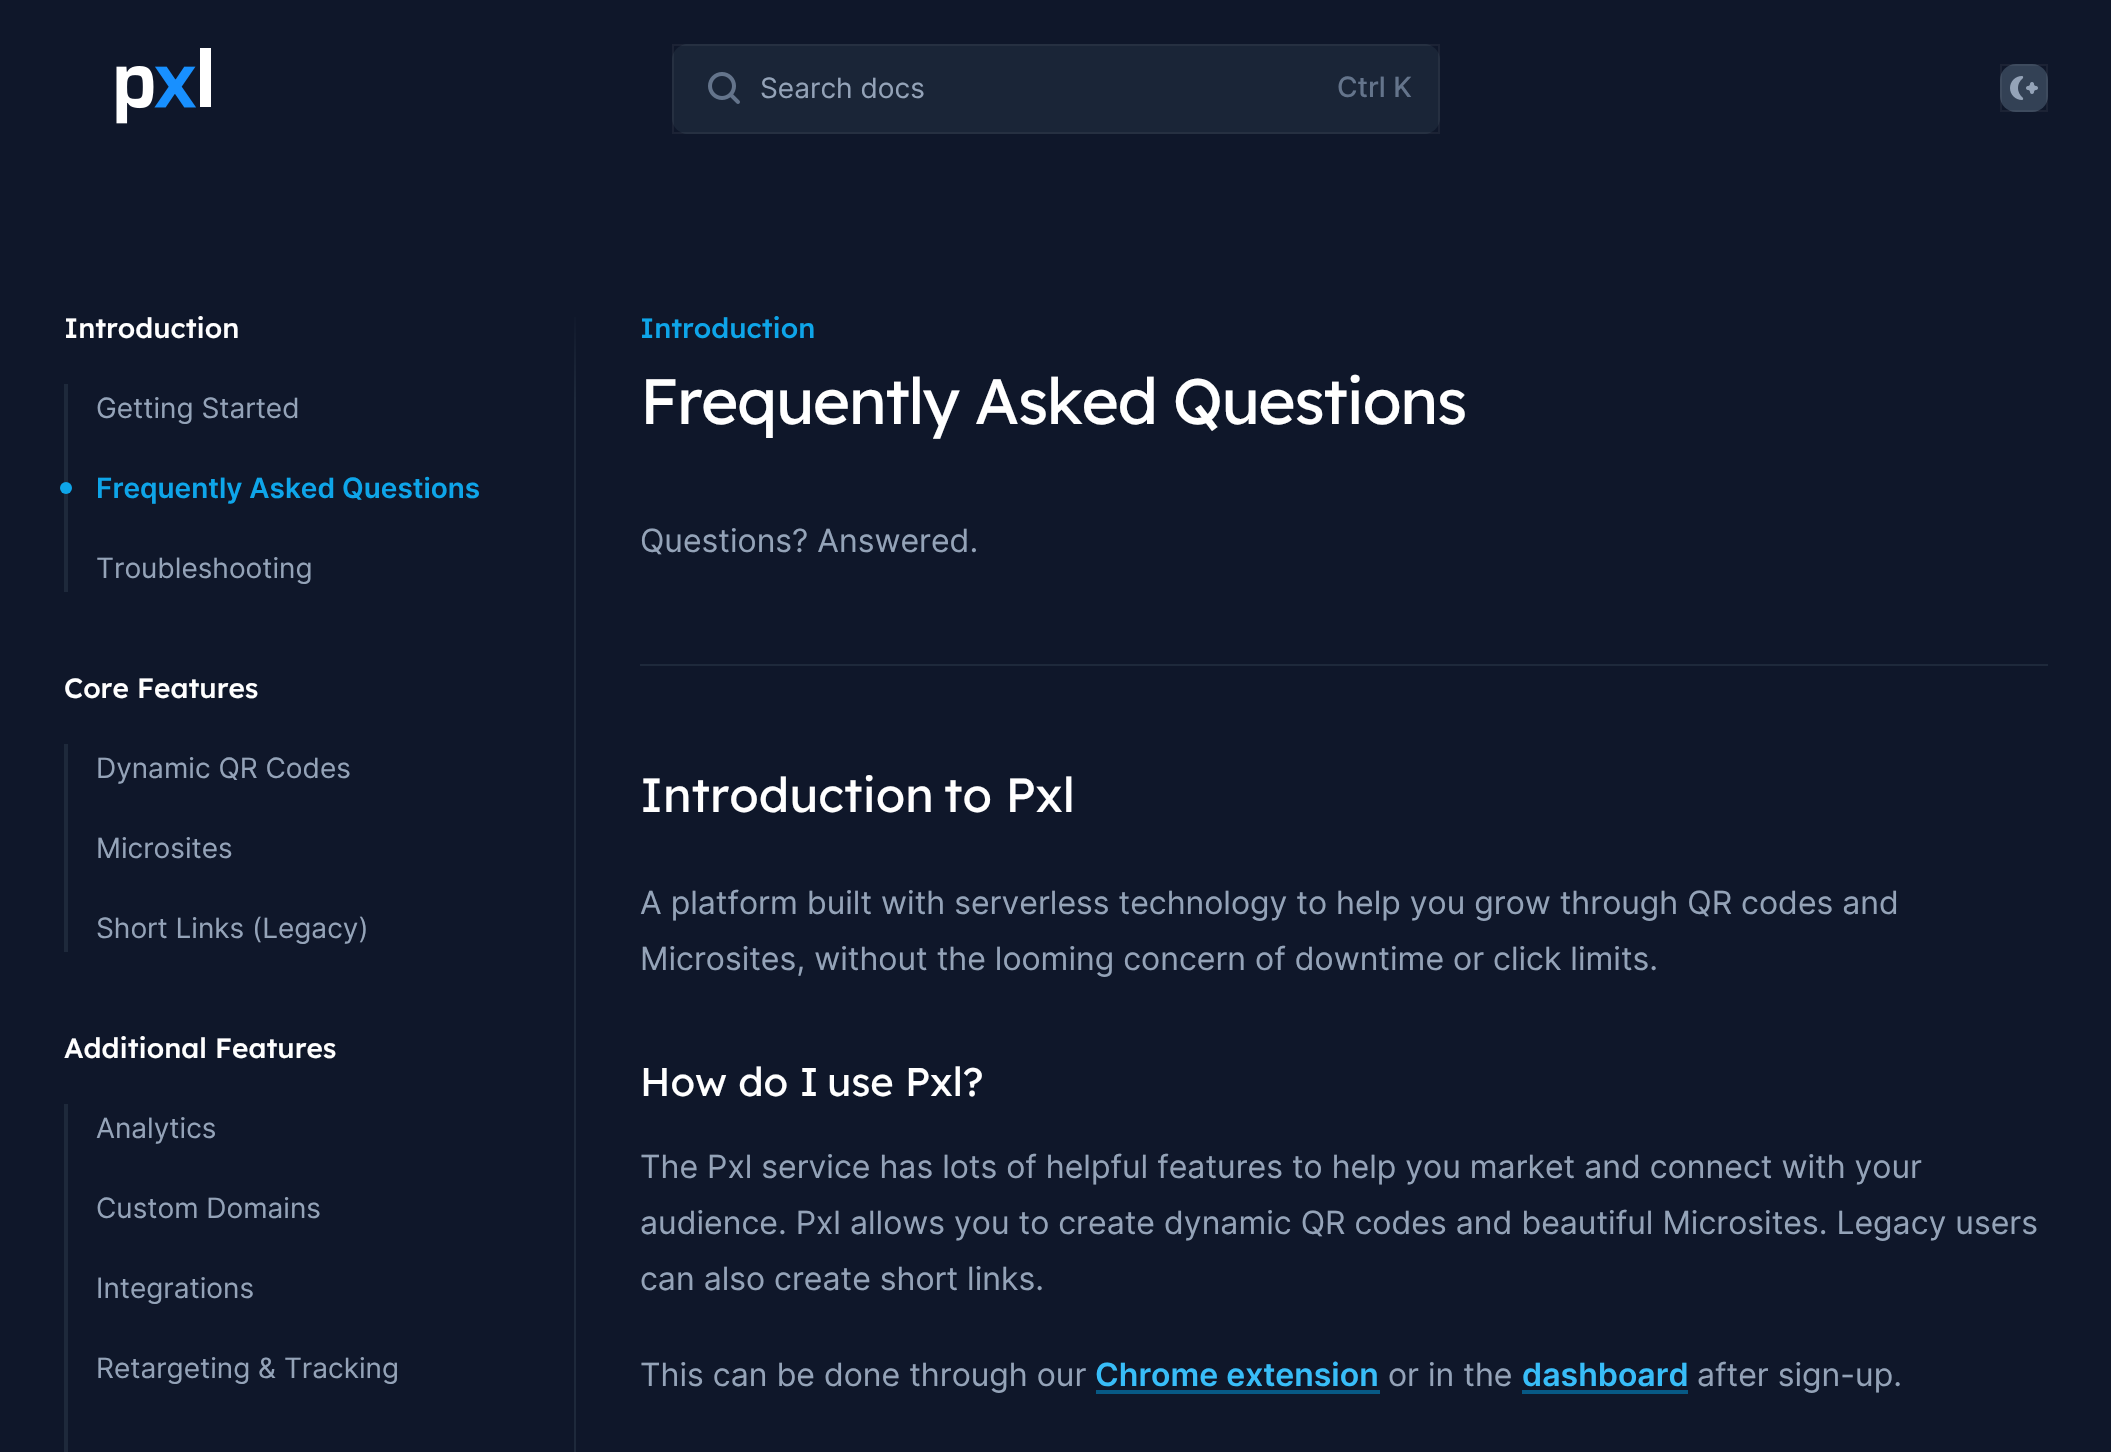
void draw(SkCanvas* c) {
SkPaint p;
p.setAntiAlias(true);
auto F=[&](const char* family, int weight, float size, bool italic = false){SkFontStyle style(weight, SkFontStyle::kNormal_Width,italic ? SkFontStyle::kItalic_Slant : SkFontStyle::kUpright_Slant);SkFont result(fontMgr->matchFamilyStyle(family, style), size);result.setSubpixel(true);return result;};
auto T=[&](const char* s, float x, float y, const SkFont& font){c->drawString(s, x, y, font, p);};
auto L=[&](const char* s, float x, float y, const SkFont& font, const SkPaint& ink, float letter, float word){std::vector<SkGlyphID> glyphs(font.countText(s, strlen(s), SkTextEncoding::kUTF8));std::vector<float> xs(glyphs.size());font.textToGlyphs(s, strlen(s), SkTextEncoding::kUTF8, glyphs);font.getXPos(glyphs, xs, x);float extra = 0;for (size_t i = 0; i < glyphs.size(); i++) {xs[i] += extra;extra += letter + word * (glyphs[i] == font.unicharToGlyph(' '));}c->drawTextBlob(SkTextBlob::MakeFromPosHGlyphs(glyphs, xs, y, font), 0, 0, ink);};
auto R=[&](float x, float y, float w, float h){c->drawRect(SkRect::MakeXYWH(x, y, w, h), p);};
auto Q=[&](float x, float y, float w, float h, float radius){c->drawRoundRect(SkRect::MakeXYWH(x, y, w, h), radius, radius, p);};
auto I=[&](const char* path, float x, float y, float w, float h){auto image = SkImages::DeferredFromEncodedData(SkData::MakeFromFileName(path));c->drawImageRect(image, SkRect::MakeXYWH(x, y, w, h), SkSamplingOptions());};
c->clear(0xff0f172a);
I("1.png",116,48,95,76);
p.setColor(0xff1a2537);
Q(672,44,768,90,16);
p.setStroke(true);
p.setStrokeWidth(2);
p.setColor(0x0dffffff);
c->drawRect(SkRect::MakeXYWH(673,45,766,88),p);
I("2.png",708,72,32,32);
auto f1 = F("Inter",400,28);
p.setStroke(false);
p.setColor(0xff94a3b8);
T("Search docs",760,98,f1);
auto f2 = F("Inter",500,28);
p.setColor(0xff64748b);
T("Ctrl K",1337,97,f2);
p.setColor(0xff334155);
Q(2000,64,48,48,16);
p.setStroke(true);
p.setColor(0x0dffffff);
c->drawRect(SkRect::MakeXYWH(2001,65,46,46),p);
I("3.png",2010,76,28,24);
auto f3 = F("Lexend",500,28);
p.setStroke(false);
p.setColor(0xffffffff);
T("Introduction",64,338,f3);
p.setColor(0xff1e293b);
R(64,384,4,208);
p.setColor(0xff94a3b8);
T("Getting Started",96,418,f1);
p.setColor(0xff0ea5e9);
c->drawCircle(66,488,6,p);
auto f4 = F("Inter",600,28);
T("Frequently Asked Questions",96,498,f4);
p.setColor(0xff94a3b8);
T("Troubleshooting",96,578,f1);
p.setColor(0xffffffff);
T("Core Features",64,698,f3);
p.setColor(0xff1e293b);
R(64,744,4,208);
p.setColor(0xff94a3b8);
T("Dynamic QR Codes",96,778,f1);
T("Microsites",96,858,f1);
T("Short Links (Legacy)",96,938,f1);
p.setColor(0xffffffff);
T("Additional Features",64,1058,f3);
p.setColor(0xff1e293b);
R(64,1104,4,348);
p.setColor(0xff94a3b8);
T("Analytics",96,1138,f1);
T("Custom Domains",96,1218,f1);
T("Integrations",96,1298,f1);
T("Retargeting & Tracking",96,1378,f1);
{
const SkColor colors[] = {0xff1e293b,0xff0f172a};
const float stops[] = {0,1};
const SkPoint ends[] = {{575,400}, {575,304}};
p.setShader(SkGradientShader::MakeLinear(ends, colors, stops, 2, SkTileMode::kClamp));
p.setAlpha(255);
}
R(574,317,2,83);
p.setShader(nullptr);
p.setColor(0xff1e293b);
R(574,400,2,1052);
p.setColor(0xff0ea5e9);
T("Introduction",640,338,f3);
auto f5 = F("Lexend",400,64);
p.setColor(0xffffffff);
L("Frequently Asked Questions",640,424,f5,p,-1.6,0);
auto f6 = F("Inter",400,32);
p.setColor(0xff94a3b8);
T("Questions? Answered.",640,552,f6);
p.setColor(0xff1e293b);
R(640,664,1408,2);
auto f7 = F("Lexend",400,48);
p.setColor(0xffffffff);
T("Introduction",640,812,f7);
T("to Pxl",944,812,f7);
p.setColor(0xff94a3b8);
T("A platform built with serverless technology to help you grow through QR codes and",640,914,f6);
T("Microsites, without the looming concern of downtime or click limits.",640,970,f6);
auto f8 = F("Lexend",400,40);
p.setColor(0xffffffff);
T("How do I",640,1096,f8);
T("use Pxl?",827,1096,f8);
p.setColor(0xff94a3b8);
T("The Pxl service has lots of helpful features to help you market and connect with your",640,1178,f6);
T("audience. Pxl allows you to create dynamic QR codes and beautiful Microsites. Legacy users",640,1234,f6);
T("can also create short links.",640,1290,f6);
T("This can be done through our",640,1386,f6);
auto f9 = F("Inter",600,32);
p.setColor(0xff38bdf8);
T("Chrome extension",1095,1386,f9);
p.setColor(0xff075985);
R(1096,1390,284,4);
p.setColor(0xff94a3b8);
T("or in the",1388,1386,f6);
p.setColor(0xff38bdf8);
T("dashboard",1522,1386,f9);
p.setColor(0xff075985);
R(1522,1390,166,4);
p.setColor(0xff94a3b8);
T("after sign-up.",1697,1386,f6);
}
